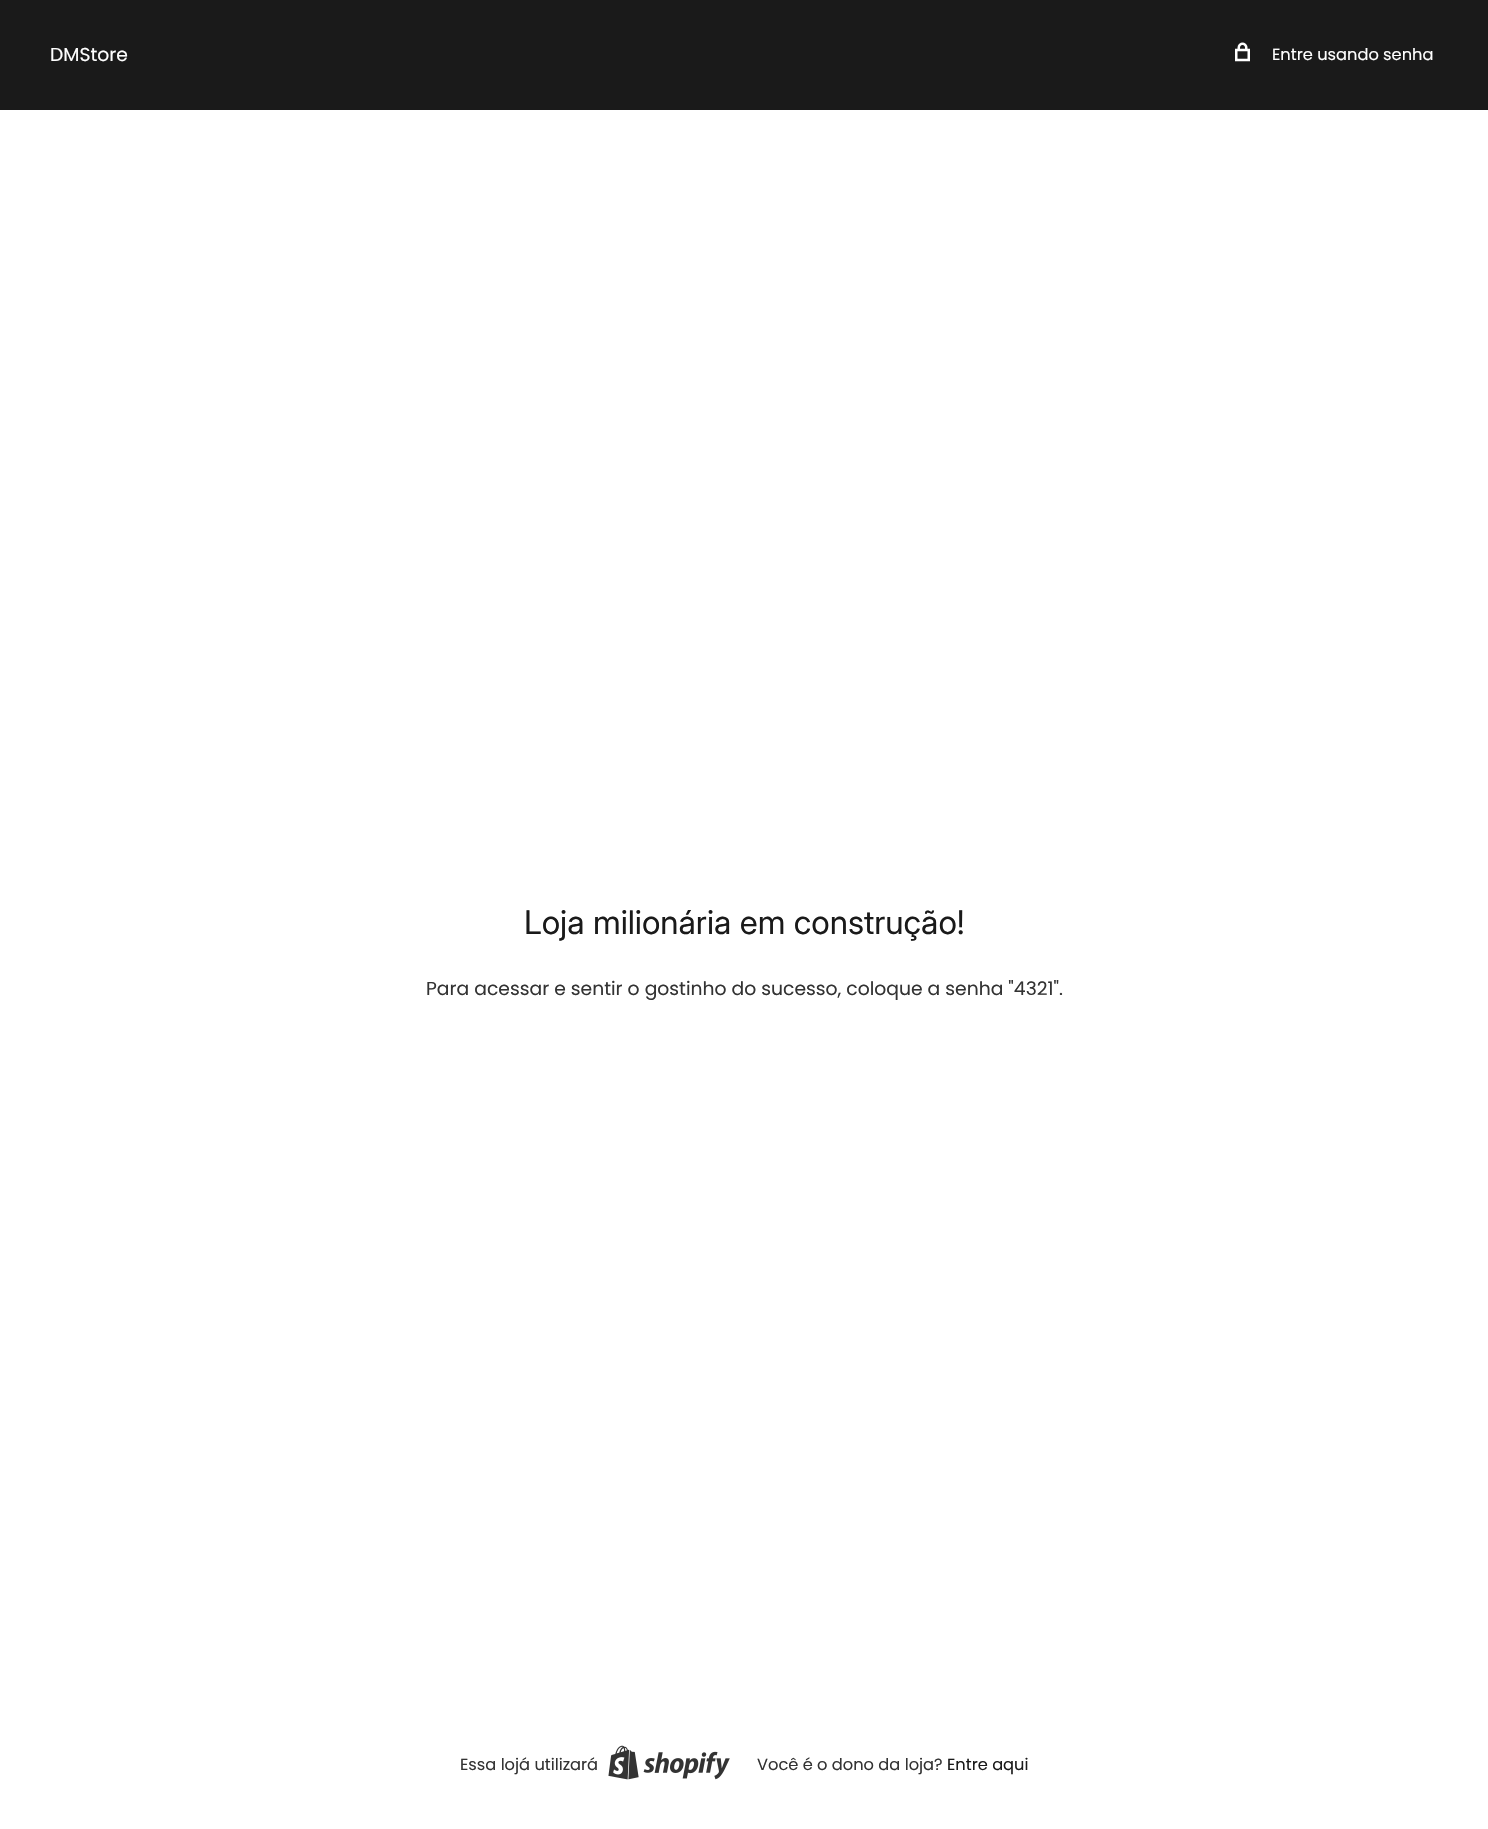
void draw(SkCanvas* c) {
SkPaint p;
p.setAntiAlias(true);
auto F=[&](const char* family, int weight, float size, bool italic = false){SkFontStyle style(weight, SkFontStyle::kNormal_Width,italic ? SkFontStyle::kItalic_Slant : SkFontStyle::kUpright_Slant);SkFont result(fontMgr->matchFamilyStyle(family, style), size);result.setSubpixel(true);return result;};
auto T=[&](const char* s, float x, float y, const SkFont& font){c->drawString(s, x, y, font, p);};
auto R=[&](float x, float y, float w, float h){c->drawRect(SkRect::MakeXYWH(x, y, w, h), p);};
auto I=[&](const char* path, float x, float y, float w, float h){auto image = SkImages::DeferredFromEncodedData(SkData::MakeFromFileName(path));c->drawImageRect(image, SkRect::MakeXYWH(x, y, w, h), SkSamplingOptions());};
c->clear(0xffffffff);
p.setColor(0xff1a1a1a);
R(0,0,1488,110);
auto f1 = F("Poppins",400,18.75);
p.setColor(0xffffffff);
T("DMStore",50,61,f1);
I("1.png",1235,42,15,20);
auto f2 = F("Poppins",400,16.25);
T("Entre usando senha",1272,60,f2);
auto f3 = F("Inter",400,32.5);
p.setColor(0xff1a1a1a);
T("Loja milionária em construção!",524,934,f3);
p.setColor(0xff333333);
T("Para acessar e sentir o gostinho do sucesso, coloque a senha \"4321\".",426,995,f1);
T("Essa lojá utilizará",460,1770,f2);
I("2.png",608,1745,122,35);
T("Você é o dono da loja?",757,1770,f2);
p.setColor(0xff1a1a1a);
T("Entre aqui",947,1770,f2);
}
